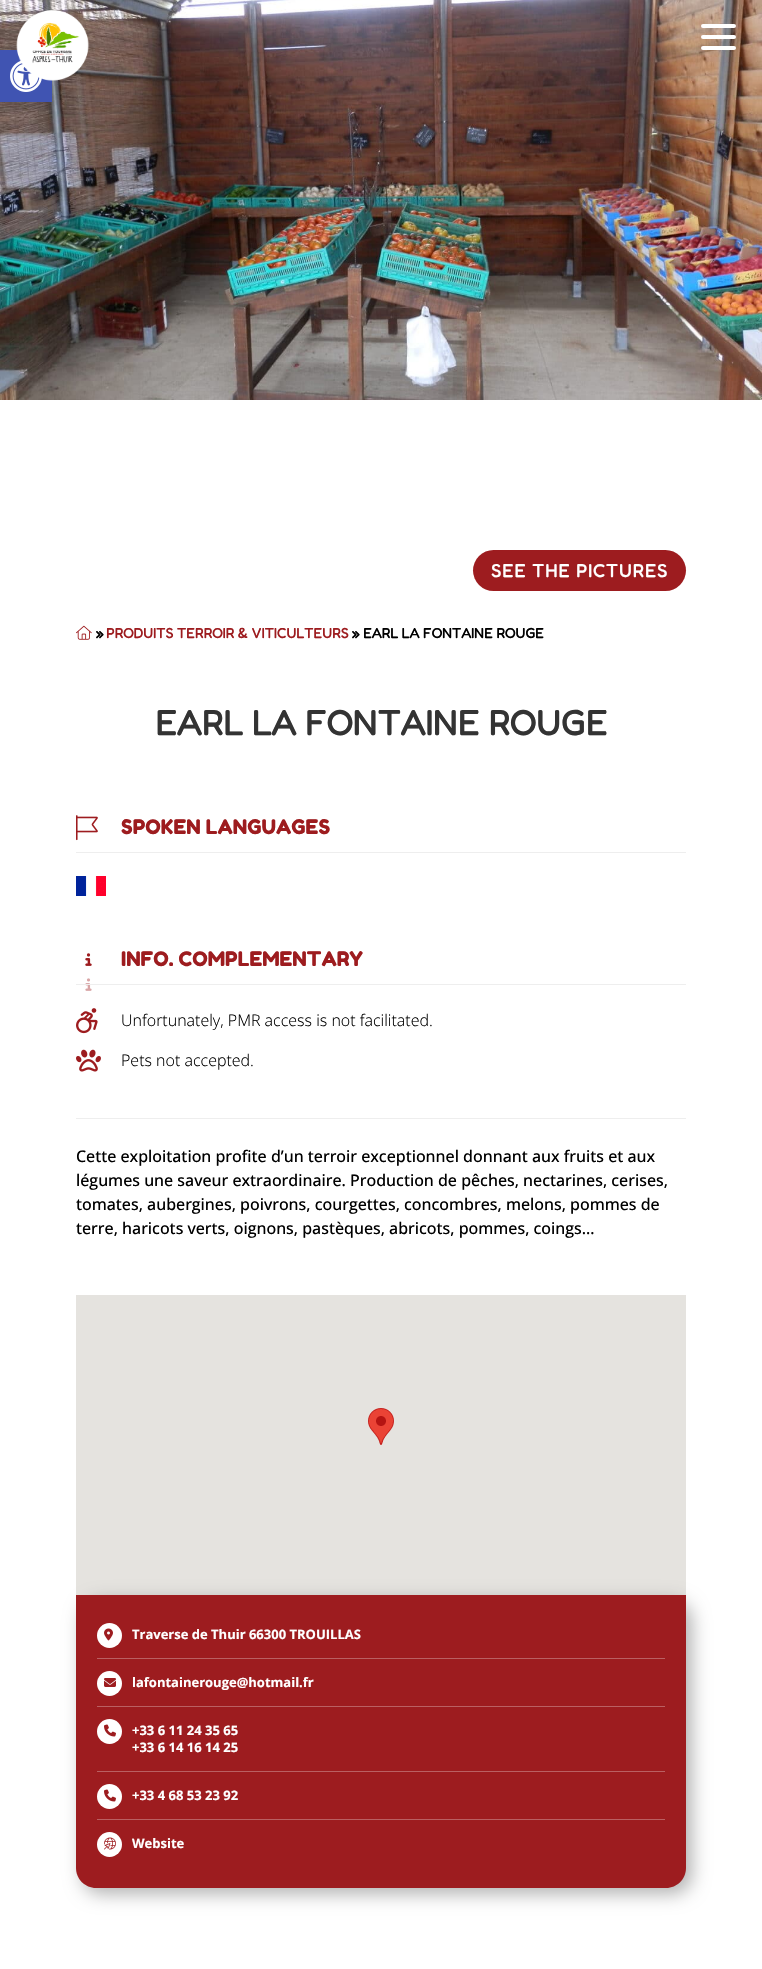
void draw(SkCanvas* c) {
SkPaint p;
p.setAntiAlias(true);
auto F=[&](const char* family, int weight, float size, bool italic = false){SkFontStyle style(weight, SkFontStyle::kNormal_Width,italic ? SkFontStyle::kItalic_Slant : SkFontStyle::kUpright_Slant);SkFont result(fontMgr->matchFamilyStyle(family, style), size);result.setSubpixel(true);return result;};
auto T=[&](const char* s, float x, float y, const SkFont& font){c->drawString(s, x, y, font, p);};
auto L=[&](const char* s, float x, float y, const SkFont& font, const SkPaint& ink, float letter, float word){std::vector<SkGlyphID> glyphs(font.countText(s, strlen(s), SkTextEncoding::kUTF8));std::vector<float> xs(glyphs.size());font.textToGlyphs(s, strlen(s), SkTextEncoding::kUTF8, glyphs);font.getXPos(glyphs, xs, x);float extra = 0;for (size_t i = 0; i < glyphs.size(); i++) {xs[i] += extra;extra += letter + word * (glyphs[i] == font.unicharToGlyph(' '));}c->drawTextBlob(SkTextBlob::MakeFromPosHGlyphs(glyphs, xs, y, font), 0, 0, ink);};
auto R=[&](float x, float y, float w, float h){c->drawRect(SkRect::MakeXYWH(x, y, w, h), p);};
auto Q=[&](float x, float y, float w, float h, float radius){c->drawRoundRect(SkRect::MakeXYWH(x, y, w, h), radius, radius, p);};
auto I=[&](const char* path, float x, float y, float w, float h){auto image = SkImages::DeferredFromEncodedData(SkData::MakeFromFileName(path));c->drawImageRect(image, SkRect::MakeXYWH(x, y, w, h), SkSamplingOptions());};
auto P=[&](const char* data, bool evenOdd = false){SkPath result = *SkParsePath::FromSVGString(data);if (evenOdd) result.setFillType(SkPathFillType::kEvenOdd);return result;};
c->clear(0xffffffff);
I("3.png",0,0,762,400);
p.setColor(0x1a000000);
p.setMaskFilter(SkMaskFilter::MakeBlur(kNormal_SkBlurStyle, 5));
c->drawRect(SkRect::MakeXYWH(0,50,52,52),p);
p.setMaskFilter(nullptr);
p.setColor(0xff4054b2);
R(0,50,52,52);
I("2.png",10,60,32,32);
I("1.png",16,10,73,71);
p.setColor(0xffffffff);
Q(701,35,35,4,2);
Q(701,24,35,4,2);
Q(701,46,35,4,2);
p.setColor(0xff9d1c1f);
Q(473,550,213,41,20.5);
auto f1 = F("Fredoka",700,18);
p.setColor(0xffffffff);
L("SEE THE PICTURES",491,577,f1,p,1,0);
I("4.png",76,625,16,15);
auto f2 = F("Fredoka",700,14);
p.setColor(0xff000000);
T("»",96,638,f2);
p.setColor(0xff9d1c1f);
T("PRODUITS TERROIR & VITICULTEURS",106,638,f2);
p.setColor(0xff000000);
T("» EARL LA FONTAINE ROUGE",352,638,f2);
auto f3 = F("Fredoka",700,35);
p.setColor(0xff333333);
T("EARL LA FONTAINE ROUGE",155,735,f3);
I("5.png",76,815,22,26);
p.setColor(0xffeeeeee);
R(76,852,610,1);
auto f4 = F("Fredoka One",400,20);
p.setColor(0xff9d1c1f);
T("SPOKEN LANGUAGES",121,834,f4);
I("6.png",76,876,30,20);
I("7.png",85,953,7,13);
I("8.png",85,953,7,13);
I("9.png",85,978,7,13);
p.setColor(0xffeeeeee);
R(76,984,610,1);
p.setColor(0xff9d1c1f);
T("INFO. COMPLEMENTARY",121,966,f4);
I("10.png",76,1008,22,26);
auto f5 = F("Open Sans",300,16);
p.setColor(0xff000000);
T("Unfortunately, PMR access is not facilitated.",121,1026,f5);
I("11.png",76,1049,25,23);
T("Pets not accepted.",121,1066,f5);
p.setColor(0xffeeeeee);
R(76,1118,610,1);
auto f6 = F("Open Sans",500,16);
p.setColor(0xff000000);
T("Cette exploitation profite d’un terroir exceptionnel donnant aux fruits et aux",76,1162,f6);
T("légumes une saveur extraordinaire. Production de pêches, nectarines, cerises,",76,1186,f6);
T("tomates, aubergines, poivrons, courgettes, concombres, melons, pommes de",76,1210,f6);
T("terre, haricots verts, oignons, pastèques, abricots, pommes, coings…",76,1234,f6);
p.setColor(0xffe5e3df);
R(76,1295,610,300);
I("12.png",368,1408,26,37);
p.setColor(0x4d000000);
p.setMaskFilter(SkMaskFilter::MakeBlur(kNormal_SkBlurStyle, 9));
c->drawRoundRect(SkRect::MakeXYWH(82,1601,610,293),20,20,p);
p.setMaskFilter(nullptr);
p.setColor(0xff9d1c1f);
c->drawPath(P("M76 1595h610v273c0 11-9 20-20 20h-570c-11 0-20-9-20-20z"),p);
p.setColor(0xffba6062);
R(97,1658,568,1);
p.setColor(0xffffffff);
c->drawCircle(109.5,1635.5,12.5,p);
I("13.png",104,1628,9,13);
auto f7 = F("Open Sans",700,13);
T("Traverse de Thuir 66300 TROUILLAS",132,1639,f7);
p.setColor(0xffba6062);
R(97,1706,568,1);
p.setColor(0xffffffff);
c->drawCircle(109.5,1683.5,12.5,p);
I("14.png",104,1678,12,9);
T("lafontainerouge@hotmail.fr",132,1687,f7);
p.setColor(0xffba6062);
R(97,1771,568,1);
p.setColor(0xffffffff);
c->drawCircle(109.5,1731.5,12.5,p);
I("15.png",104,1724,12,13);
T("+33 6 11 24 35 65",132,1735,f7);
T("+33 6 14 16 14 25",132,1752,f7);
p.setColor(0xffba6062);
R(97,1819,568,1);
p.setColor(0xffffffff);
c->drawCircle(109.5,1796.5,12.5,p);
I("15.png",104,1789,12,13);
T("+33 4 68 53 23 92",132,1800,f7);
c->drawCircle(109.5,1844.5,12.5,p);
I("16.png",104,1837,12,13);
T("Website",132,1848,f7);
}
